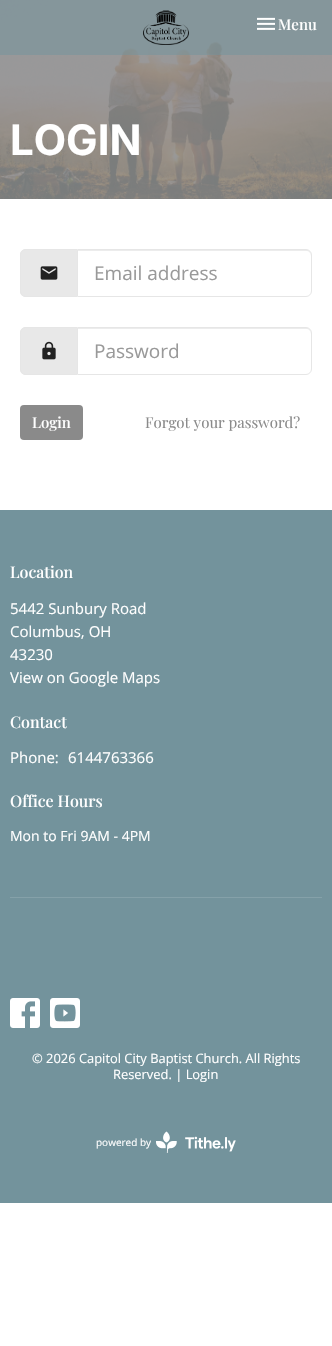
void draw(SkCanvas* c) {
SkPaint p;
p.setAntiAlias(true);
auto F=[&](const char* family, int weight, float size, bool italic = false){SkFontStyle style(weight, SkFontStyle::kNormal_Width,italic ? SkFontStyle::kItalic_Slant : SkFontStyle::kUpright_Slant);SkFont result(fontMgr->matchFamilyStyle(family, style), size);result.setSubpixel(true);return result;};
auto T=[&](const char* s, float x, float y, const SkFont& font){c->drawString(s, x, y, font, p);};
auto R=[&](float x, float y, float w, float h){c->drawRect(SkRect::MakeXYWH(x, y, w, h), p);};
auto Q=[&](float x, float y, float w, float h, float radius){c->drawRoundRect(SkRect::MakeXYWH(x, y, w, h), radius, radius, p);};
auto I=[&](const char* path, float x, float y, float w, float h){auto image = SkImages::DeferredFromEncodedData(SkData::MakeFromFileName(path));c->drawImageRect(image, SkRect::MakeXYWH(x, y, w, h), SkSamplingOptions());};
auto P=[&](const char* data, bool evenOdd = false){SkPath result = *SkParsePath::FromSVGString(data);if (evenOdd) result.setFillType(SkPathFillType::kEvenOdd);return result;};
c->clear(0xffffffff);
I("3.png",0,0,332,199);
p.setColor(0x8773939c);
R(0,0,332,55);
I("1.png",143,10,46,35);
I("2.png",257,17,18,13);
auto f1 = F("Playfair Display",500,15);
p.setColor(0xffffffff);
T("Menu",278,30,f1);
auto f2 = F("Inter",700,42);
T("LOGIN",10,155,f2);
p.setColor(0xffe8e8e8);
c->drawPath(P("M26 249h51v48h-51c-3.5 0-6-2.5-6-6v-36c0-3.5 2.5-6 6-6z"),p);
p.setColor(0xffe6e6e6);
c->drawPath(P("M26 249h51v48h-51c-3 0-6-3-6-6v-36c0-3 3-6 6-6zm0 1h51v46h-51c-3 0-5-2-5-5v-36c0-3 2-5 5-5z",true),p);
I("4.png",40,266,18,14);
p.setColor(0xffececec);
c->drawPath(P("M78 251h228c3 0 5 2 5 5v-1c0-3-2-5-5-5h-228z"),p);
p.setStroke(true);
p.setStrokeWidth(1);
p.setColor(0xffe6e6e6);
c->drawPath(P("M77.5 249.5h228.5c3 0 5.5 2.5 5.5 5.5v36c0 3-2.5 5.5-5.5 5.5h-228.5z"),p);
auto f3 = F("Open Sans",400,19);
p.setStroke(false);
p.setColor(0xff999999);
T("Email address",94,280,f3);
p.setColor(0xffe8e8e8);
c->drawPath(P("M26 327h51v48h-51c-3.5 0-6-2.5-6-6v-36c0-3.5 2.5-6 6-6z"),p);
p.setColor(0xffe6e6e6);
c->drawPath(P("M26 327h51v48h-51c-3 0-6-3-6-6v-36c0-3 3-6 6-6zm0 1h51v46h-51c-3 0-5-2-5-5v-36c0-3 2-5 5-5z",true),p);
I("5.png",42,341,14,19);
p.setColor(0xffececec);
c->drawPath(P("M78 329h228c3 0 5 2 5 5v-1c0-3-2-5-5-5h-228z"),p);
p.setStroke(true);
p.setColor(0xffe6e6e6);
c->drawPath(P("M77.5 327.5h228.5c3 0 5.5 2.5 5.5 5.5v36c0 3-2.5 5.5-5.5 5.5h-228.5z"),p);
p.setStroke(false);
p.setColor(0xff999999);
T("Password",94,358,f3);
p.setColor(0xff8a8a8a);
Q(20,405,63,35,4);
p.setColor(0xffffffff);
T("Login",32,428,f1);
auto f4 = F("Playfair Display",400,15);
p.setColor(0xff8a8a8a);
T("Forgot your password?",145,428,f4);
p.setColor(0xff73939c);
R(0,510,332,693);
auto f5 = F("Playfair Display",500,16);
p.setColor(0xffffffff);
T("Location",10,578,f5);
auto f6 = F("Open Sans",400,15);
T("5442 Sunbury Road",10,614,f6);
T("Columbus, OH",10,637,f6);
T("43230",10,660,f6);
T("View on Google Maps",10,683,f6);
T("Contact",10,728,f5);
T("Phone:",10,763,f6);
T("6144763366",68,763,f6);
T("Office Hours",10,807,f5);
auto f7 = F("Open Sans",400,14);
T("Mon to Fri 9AM - 4PM",10,841,f7);
p.setColor(0xff85a1a9);
R(10,897,312,1);
I("6.png",10,998,30,30);
I("7.png",50,998,30,30);
auto f8 = F("Open Sans",400,12.9);
p.setColor(0xffffffff);
T("© 2026 Capitol City Baptist Church. All Rights",32,1063,f8);
T("Reserved. | Login",113,1079,f8);
auto f9 = F("Open Sans",400,10);
T("powered by",96,1146,f9);
I("8.png",156,1131,80,22);
}
